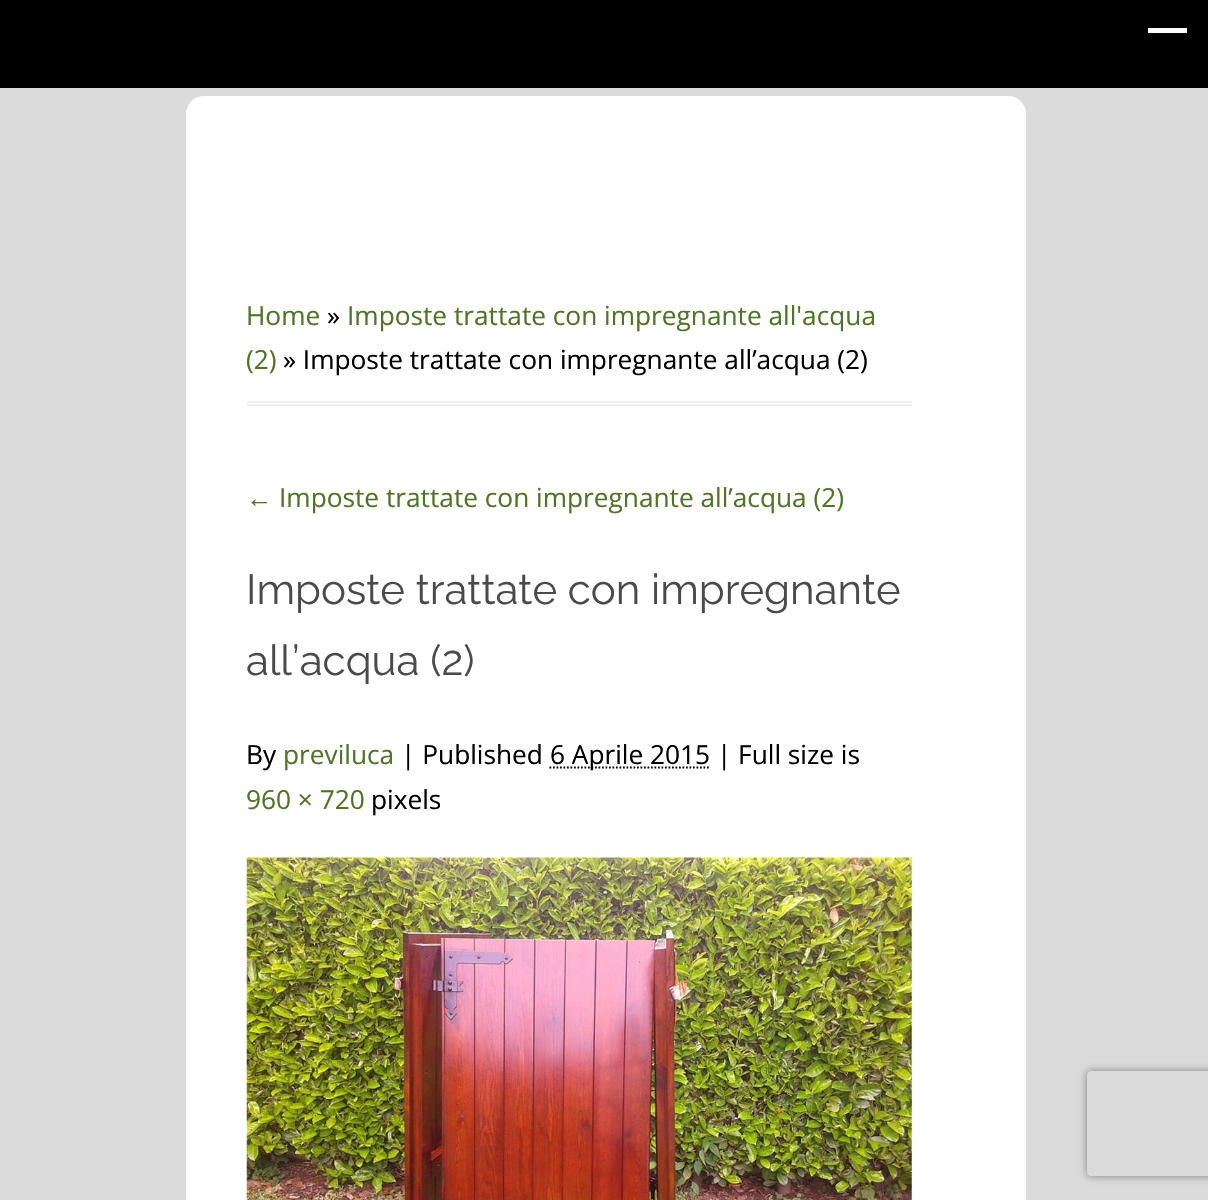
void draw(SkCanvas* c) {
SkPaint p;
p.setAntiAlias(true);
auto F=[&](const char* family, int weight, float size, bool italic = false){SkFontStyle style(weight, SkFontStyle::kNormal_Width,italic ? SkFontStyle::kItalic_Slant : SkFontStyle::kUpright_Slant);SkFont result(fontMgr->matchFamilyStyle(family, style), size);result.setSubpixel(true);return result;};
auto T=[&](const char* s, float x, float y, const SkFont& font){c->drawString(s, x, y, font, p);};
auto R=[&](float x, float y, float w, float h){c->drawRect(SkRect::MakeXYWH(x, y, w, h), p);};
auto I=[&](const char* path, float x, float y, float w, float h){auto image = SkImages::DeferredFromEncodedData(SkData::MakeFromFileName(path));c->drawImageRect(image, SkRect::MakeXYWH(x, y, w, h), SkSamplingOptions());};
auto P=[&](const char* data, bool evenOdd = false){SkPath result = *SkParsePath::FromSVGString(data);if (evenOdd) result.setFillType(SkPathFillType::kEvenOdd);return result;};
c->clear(0xffdbdbdb);
p.setColor(0xff000000);
R(0,0,1208,88);
p.setColor(0xffffffff);
R(1148,28,39,5);
c->drawPath(P("M204 96h804c10 0 18 8 18 18v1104h-840v-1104c0-10 8-18 18-18z"),p);
p.setColor(0xffeeeeee);
R(247,401,665,2);
R(247,404,665,2);
auto f1 = F("Open Sans",400,26.25);
p.setColor(0xff4f7327);
T("Home",246,325,f1);
p.setColor(0xff000000);
T("»",327,325,f1);
p.setColor(0xff4f7327);
T("Imposte trattate con impregnante all'acqua",347,325,f1);
T("(2)",246,369,f1);
p.setColor(0xff000000);
T("» Imposte trattate con impregnante all’acqua (2)",283,369,f1);
auto f2 = F("Liberation Sans",400,26.25);
p.setColor(0xff4f7327);
T("←",246,507,f2);
T("Imposte trattate con impregnante all’acqua (2)",279,507,f1);
auto f3 = F("Raleway",400,42);
p.setColor(0xff4a4a4a);
T("Imposte trattate con impregnante",246,604,f3);
T("all’acqua (2)",246,675,f3);
p.setColor(0xff000000);
T("By",246,764,f1);
p.setColor(0xff4f7327);
T("previluca",283,764,f1);
p.setColor(0xff000000);
T("| Published",401,764,f1);
p.setStroke(true);
p.setStrokeWidth(1.8);
p.setPathEffect(SkDashPathEffect::Make({{1.75f,1.75f}}, 0));
c->drawPath(P("M549.5 767.5h160"),p);
p.setPathEffect(nullptr);
p.setStroke(false);
T("6 Aprile 2015 | Full size is",550,764,f1);
p.setColor(0xff4f7327);
T("960 × 720",246,809,f1);
p.setColor(0xff000000);
T("pixels",371,809,f1);
I("1.png",246,857,666,343);
c->save();
c->clipPath(P("M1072 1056h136v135h-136zm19 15h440c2 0 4 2 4 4v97c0 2-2 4-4 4h-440c-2 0-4-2-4-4v-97c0-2 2-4 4-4z",true),true);
p.setColor(0xff808080);
p.setMaskFilter(SkMaskFilter::MakeBlur(kNormal_SkBlurStyle, 4.5));
c->drawRoundRect(SkRect::MakeXYWH(1087,1071,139,105),4,4,p);
p.setMaskFilter(nullptr);
c->restore();
}
